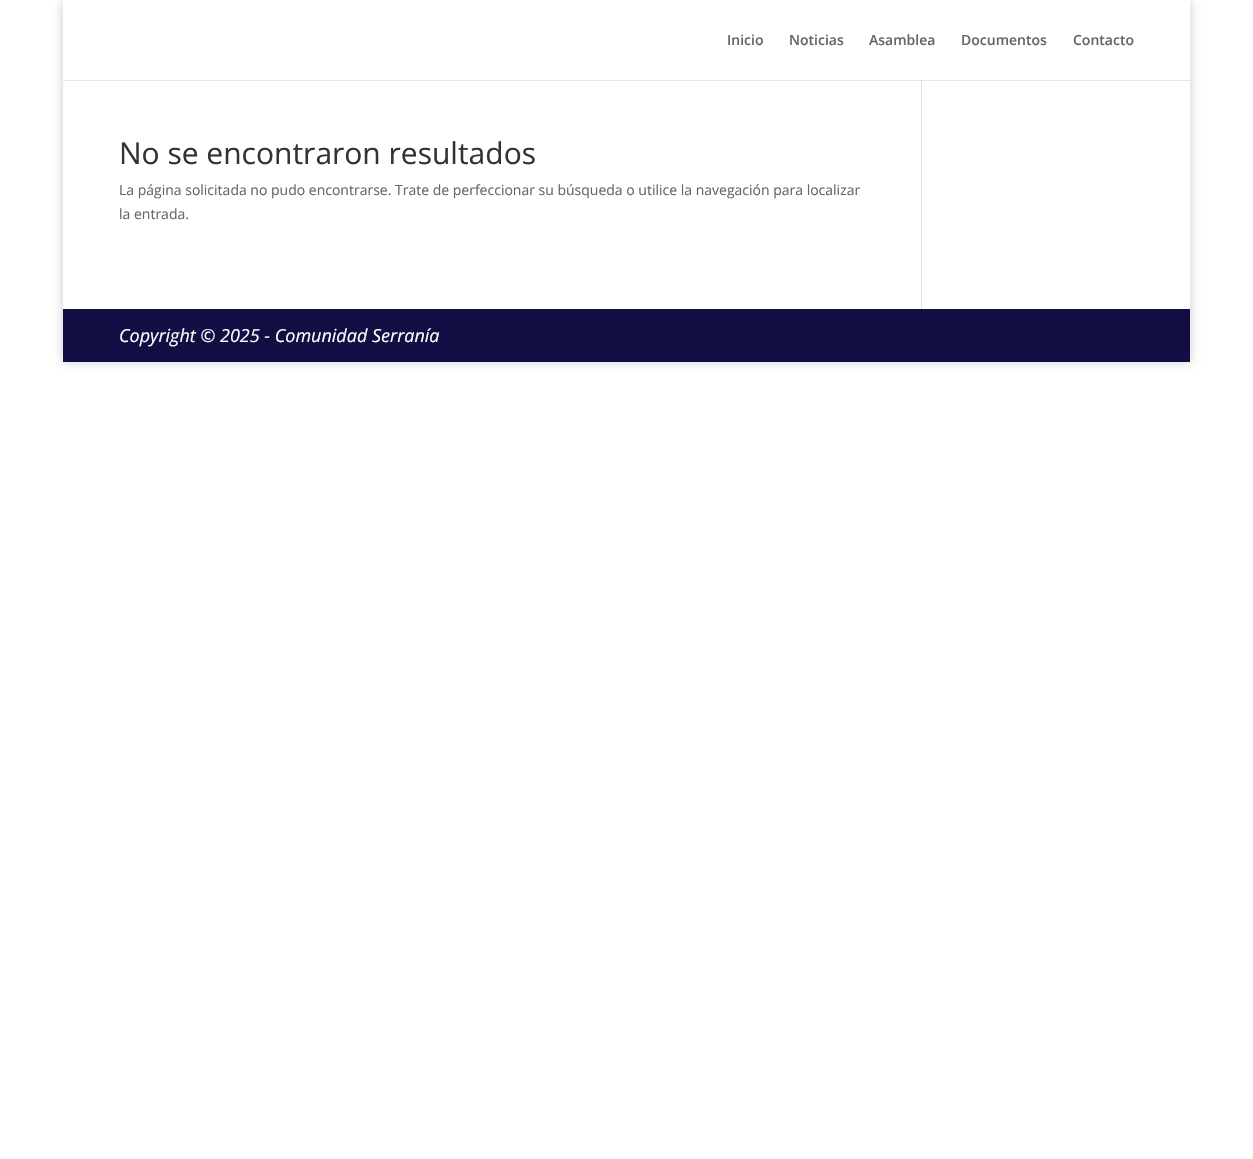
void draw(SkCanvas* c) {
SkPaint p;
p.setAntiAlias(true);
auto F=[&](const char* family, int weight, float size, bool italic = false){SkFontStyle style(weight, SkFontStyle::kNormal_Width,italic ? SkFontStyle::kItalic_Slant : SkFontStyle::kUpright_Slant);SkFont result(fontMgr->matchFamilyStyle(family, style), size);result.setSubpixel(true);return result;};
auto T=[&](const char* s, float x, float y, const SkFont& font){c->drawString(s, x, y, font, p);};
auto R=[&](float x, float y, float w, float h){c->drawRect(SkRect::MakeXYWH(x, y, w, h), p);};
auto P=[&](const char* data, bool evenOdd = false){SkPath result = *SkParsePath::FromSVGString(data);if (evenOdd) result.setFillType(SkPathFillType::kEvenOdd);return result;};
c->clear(0xffffffff);
p.setColor(0xffe6e6e6);
R(63,80,1127,1);
c->save();
c->clipPath(P("M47 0h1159v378h-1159zm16 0h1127v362h-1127z",true),true);
p.setColor(0x33000000);
p.setMaskFilter(SkMaskFilter::MakeBlur(kNormal_SkBlurStyle, 5));
c->drawRect(SkRect::MakeXYWH(63,0,1127,362),p);
p.setMaskFilter(nullptr);
c->restore();
auto f1 = F("Open Sans",600,14);
p.setColor(0xff666666);
T("Inicio",727,45,f1);
T("Noticias",789,45,f1);
T("Asamblea",869,45,f1);
T("Documentos",961,45,f1);
T("Contacto",1073,45,f1);
auto f2 = F("Open Sans",400,30);
p.setColor(0xff333333);
T("No se encontraron resultados",119,164,f2);
auto f3 = F("Open Sans",400,14);
p.setColor(0xff666666);
T("La página solicitada no pudo encontrarse. Trate de perfeccionar su búsqueda o utilice la navegación para localizar",119,195,f3);
T("la entrada.",119,219,f3);
p.setColor(0xffe2e2e2);
R(921,80,1,229);
p.setColor(0xffcbcbcb);
R(921,80,1,1);
p.setColor(0xff120e44);
R(63,309,1127,53);
auto f4 = F("Open Sans",400,18,true);
p.setColor(0xffffffff);
T("Copyright © 2025 - Comunidad Serranía",119,342,f4);
}
